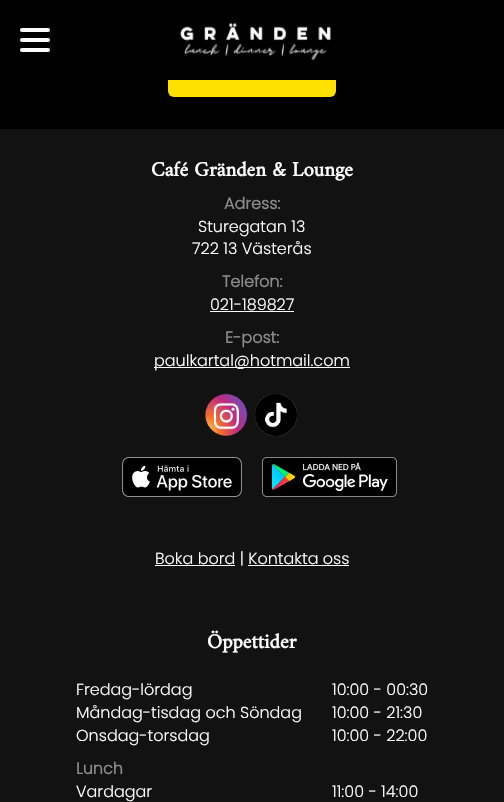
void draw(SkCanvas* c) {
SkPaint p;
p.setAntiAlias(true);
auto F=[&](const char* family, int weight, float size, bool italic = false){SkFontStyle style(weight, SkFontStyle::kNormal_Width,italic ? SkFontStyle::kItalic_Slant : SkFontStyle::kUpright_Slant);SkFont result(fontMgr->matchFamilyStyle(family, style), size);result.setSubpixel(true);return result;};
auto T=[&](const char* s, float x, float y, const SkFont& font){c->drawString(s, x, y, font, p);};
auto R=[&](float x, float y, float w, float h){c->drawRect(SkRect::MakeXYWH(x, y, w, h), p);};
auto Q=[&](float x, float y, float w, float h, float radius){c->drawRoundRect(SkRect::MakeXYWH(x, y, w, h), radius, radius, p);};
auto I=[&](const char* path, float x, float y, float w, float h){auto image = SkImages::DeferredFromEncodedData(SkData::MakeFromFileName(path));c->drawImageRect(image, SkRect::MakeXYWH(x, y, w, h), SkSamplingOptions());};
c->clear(0xff000000);
p.setColor(0xffffe100);
Q(168,53,168,44,6);
p.setColor(0xff000000);
R(168,53,168,27);
p.setColor(0xffffffff);
Q(20,28,30,4,2);
Q(20,38,30,4,2);
Q(20,48,30,4,2);
I("1.png",180,22,151,38);
p.setColor(0xff131212);
R(0,129,504,673);
auto f1 = F("Amiri",700,20.75);
p.setColor(0xffffffff);
T("Café Gränden & Lounge",151,176,f1);
auto f2 = F("Poppins",700,16);
p.setColor(0xff898989);
T("Adress:",224,209,f2);
auto f3 = F("Poppins",300,16);
p.setColor(0xffffffff);
T("Sturegatan 13",198,232,f3);
T("722 13 Västerås",192,254,f3);
p.setColor(0xff898989);
T("Telefon:",222,287,f2);
p.setColor(0xffffffff);
T("021-189827",210,310,f3);
R(210,311,84,1);
p.setColor(0xff898989);
T("E-post:",225,343,f2);
p.setColor(0xffffffff);
R(154,367,196,1);
T("paulkartal@hotmail.com",154,366,f3);
I("2.png",205,393,43,43);
I("3.png",254,393,44,44);
I("4.png",122,457,120,40);
I("5.png",262,457,135,40);
R(155,565,80,1);
T("Boka bord | Kontakta oss",155,564,f3);
R(248,565,101,1);
T("Öppettider",207,648,f1);
T("Fredag-lördag",76,695,f3);
T("10:00 - 00:30",332,695,f3);
T("Måndag-tisdag och Söndag",76,718,f3);
T("10:00 - 21:30",332,718,f3);
T("Onsdag-torsdag",76,741,f3);
T("10:00 - 22:00",332,741,f3);
p.setColor(0xff898989);
T("Lunch",76,774,f2);
p.setColor(0xffffffff);
T("Vardagar",76,797,f3);
T("11:00 - 14:00",332,797,f3);
}
